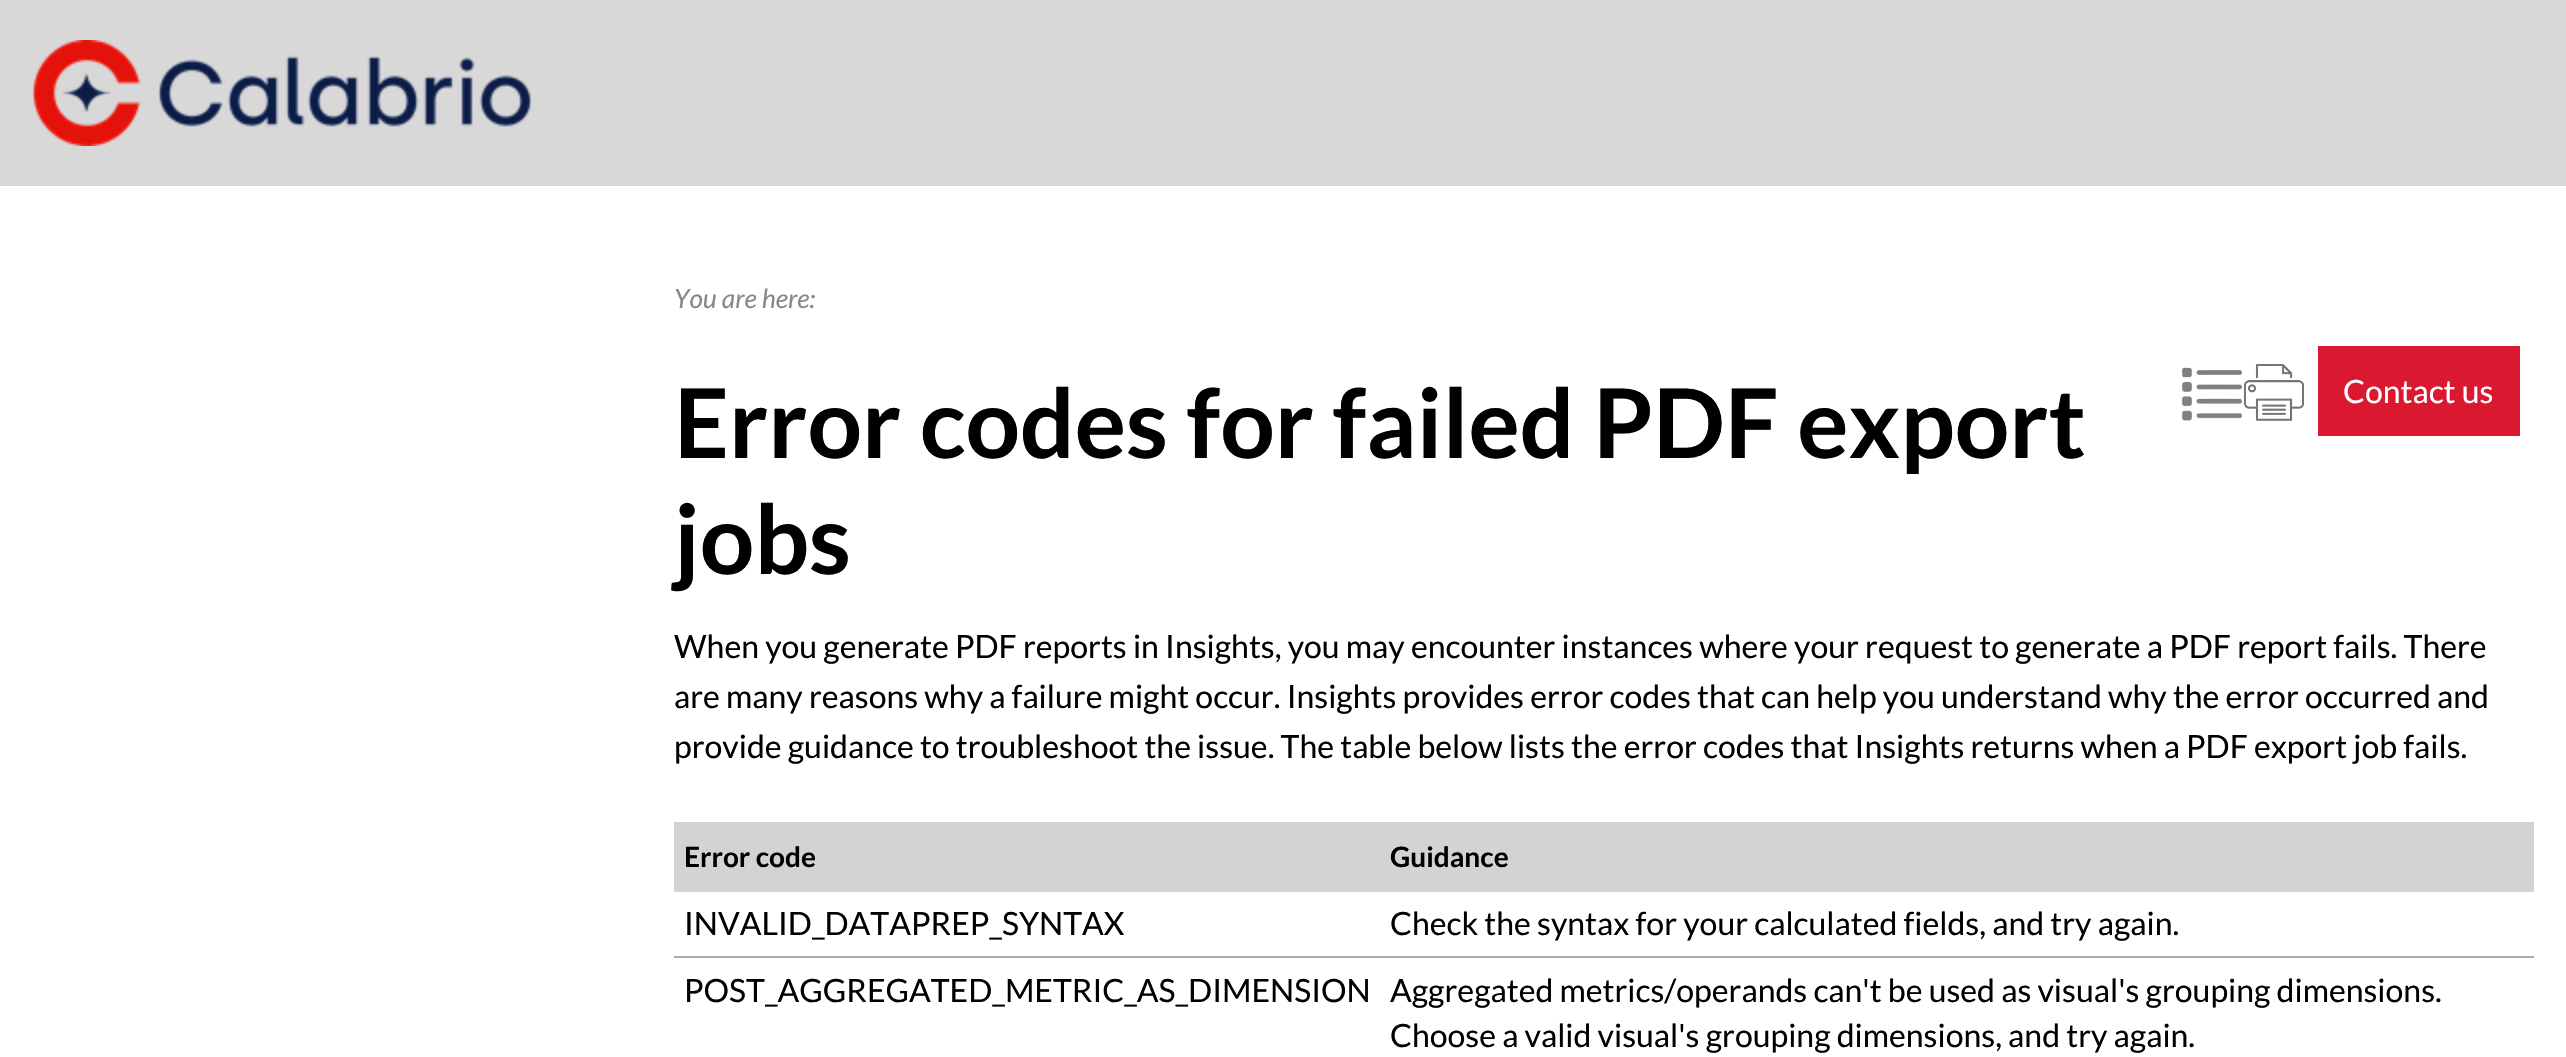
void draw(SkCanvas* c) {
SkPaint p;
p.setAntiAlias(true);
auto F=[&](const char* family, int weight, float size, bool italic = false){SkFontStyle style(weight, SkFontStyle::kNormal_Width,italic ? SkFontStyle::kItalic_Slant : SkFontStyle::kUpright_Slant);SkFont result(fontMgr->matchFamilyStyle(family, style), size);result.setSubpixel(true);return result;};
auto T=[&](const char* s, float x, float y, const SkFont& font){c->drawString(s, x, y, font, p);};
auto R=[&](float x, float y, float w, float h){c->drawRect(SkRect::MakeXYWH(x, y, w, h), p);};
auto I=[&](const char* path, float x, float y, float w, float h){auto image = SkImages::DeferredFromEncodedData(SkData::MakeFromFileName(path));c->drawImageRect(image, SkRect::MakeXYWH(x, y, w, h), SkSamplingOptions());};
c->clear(0xffffffff);
p.setColor(0xffd8d8d8);
R(0,0,2566,186);
I("1.png",32,40,500,106);
auto f1 = F("Lato",400,26.5,true);
p.setColor(0xff888888);
T("You are here:",674,308,f1);
I("2.png",2181,367,61,54);
I("3.png",2243,364,61,57);
p.setColor(0xffda1931);
R(2318,346,202,90);
auto f2 = F("Lato",400,32);
p.setColor(0xffffffff);
T("Contact us",2343,403,f2);
auto f3 = F("Lato",700,96);
p.setColor(0xff000000);
T("Error codes for failed PDF export",674,458,f3);
T("jobs",674,574,f3);
T("When you generate PDF reports in Insights, you may encounter instances where your request to generate a PDF report fails. There",674,658,f2);
T("are many reasons why a failure might occur. Insights provides error codes that can help you understand why the error occurred and",674,708,f2);
T("provide guidance to troubleshoot the issue. The table below lists the error codes that Insights returns when a PDF export job fails.",674,758,f2);
p.setColor(0xffd3d3d3);
R(674,822,1860,70);
auto f4 = F("Lato",700,28);
p.setColor(0xff000000);
T("Error code",684,867,f4);
T("Guidance",1390,867,f4);
p.setColor(0xffa9a9a9);
R(674,956,1860,2);
p.setColor(0xff000000);
T("INVALID_DATAPREP_SYNTAX",684,935,f2);
T("Check the syntax for your calculated fields, and try again.",1390,935,f2);
T("POST_AGGREGATED_METRIC_AS_DIMENSION",684,1002,f2);
T("Aggregated metrics/operands can't be used as visual's grouping dimensions.",1390,1002,f2);
T("Choose a valid visual's grouping dimensions, and try again.",1390,1047,f2);
}
